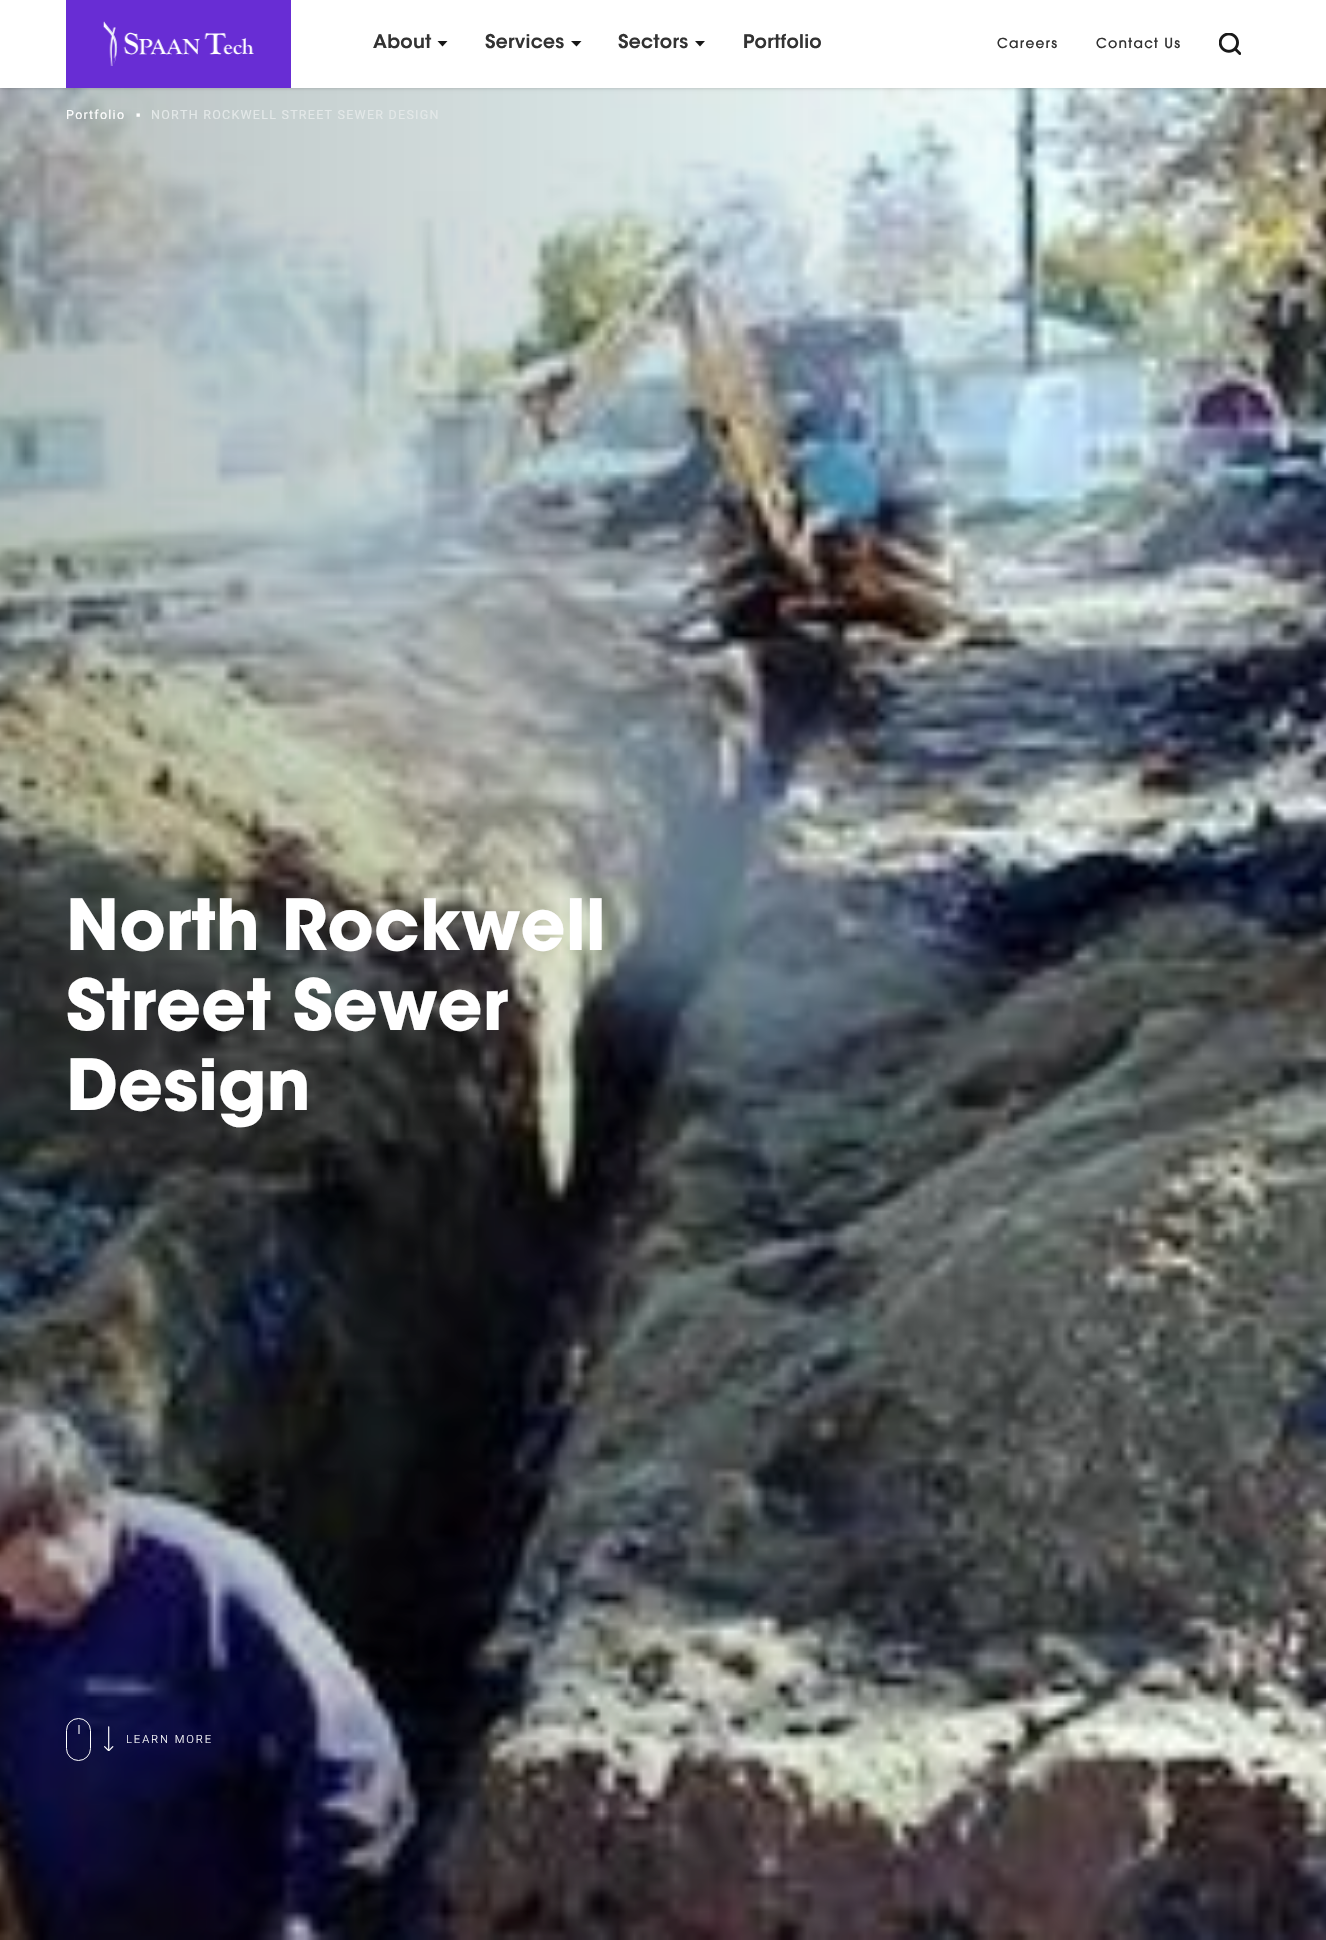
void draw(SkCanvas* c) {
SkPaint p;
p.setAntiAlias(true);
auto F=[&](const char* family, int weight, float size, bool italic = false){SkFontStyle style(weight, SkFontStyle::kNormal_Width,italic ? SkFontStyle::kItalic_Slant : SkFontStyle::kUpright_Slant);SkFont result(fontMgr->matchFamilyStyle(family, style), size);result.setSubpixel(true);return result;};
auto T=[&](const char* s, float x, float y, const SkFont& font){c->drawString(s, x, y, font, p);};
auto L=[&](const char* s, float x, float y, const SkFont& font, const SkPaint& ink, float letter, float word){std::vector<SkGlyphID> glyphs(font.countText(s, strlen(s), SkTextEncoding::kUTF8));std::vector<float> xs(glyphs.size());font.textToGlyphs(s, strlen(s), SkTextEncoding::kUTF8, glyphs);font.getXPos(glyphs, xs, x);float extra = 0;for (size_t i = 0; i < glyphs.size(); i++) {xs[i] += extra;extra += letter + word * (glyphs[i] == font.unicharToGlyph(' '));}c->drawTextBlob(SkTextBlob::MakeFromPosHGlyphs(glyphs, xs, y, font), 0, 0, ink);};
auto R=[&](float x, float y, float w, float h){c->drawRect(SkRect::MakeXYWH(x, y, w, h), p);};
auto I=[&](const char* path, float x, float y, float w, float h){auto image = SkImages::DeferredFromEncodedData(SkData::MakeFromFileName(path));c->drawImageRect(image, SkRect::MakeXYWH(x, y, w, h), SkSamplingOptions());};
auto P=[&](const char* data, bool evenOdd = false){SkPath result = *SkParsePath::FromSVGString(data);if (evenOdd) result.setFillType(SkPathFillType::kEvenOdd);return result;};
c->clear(0xffffffff);
I("3.png",0,88,1326,1852);
p.setColor(0x3b000000);
p.setMaskFilter(SkMaskFilter::MakeBlur(kNormal_SkBlurStyle, 2));
c->drawRect(SkRect::MakeXYWH(0,0,1326,88),p);
p.setMaskFilter(nullptr);
p.setColor(0xffffffff);
R(0,0,1326,88);
p.setColor(0xff682dd4);
R(66,0,225,88);
I("1.png",103,21,151,45);
auto f1 = F("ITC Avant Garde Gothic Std",600,18.75);
p.setColor(0xff333333);
L("About",373,48,f1,p,.25,0);
p.setColor(0xff171717);
c->drawPath(P("M442.5 46.5l-5-5.5h10z",true),p);
p.setColor(0xff333333);
L("Services",485,48,f1,p,.25,0);
p.setColor(0xff171717);
c->drawPath(P("M576.5 46.5l-5.5-5.5h10.5z",true),p);
p.setColor(0xff333333);
L("Sectors",618,48,f1,p,.25,0);
p.setColor(0xff171717);
c->drawPath(P("M700 46.5l-5-5.5h10z",true),p);
p.setColor(0xff333333);
L("Portfolio",743,48,f1,p,.25,0);
auto f2 = F("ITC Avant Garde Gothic",500,13.75);
L("Careers",997,48,f2,p,1.25,0);
L("Contact Us",1096,48,f2,p,1.25,0);
I("2.png",1219,33,22,22);
auto f3 = F("Roboto",400,12.5);
p.setColor(0xffffffff);
L("Portfolio",66,119,f3,p,1.25,0);
auto f4 = F("Liberation Sans",400,12.5);
L("▪",136,119,f4,p,1.25,0);
p.setColor(0xffe3e8e8);
L("NORTH ROCKWELL STREET SEWER DESIGN",151,119,f3,p,1.25,0);
auto f5 = F("ITC Avant Garde Gothic Std",700,70);
p.setColor(0xffffffff);
T("North Rockwell",66,950,f5);
T("Street Sewer",66,1030,f5);
T("Design",66,1110,f5);
p.setStroke(true);
p.setStrokeWidth(1);
c->drawRoundRect(SkRect::MakeXYWH(66.5,1718.5,24,42),12,12,p);
p.setStrokeWidth(1.1);
c->drawPath(P("M79 1725v9"),p);
I("4.png",104,1726,10,25);
auto f6 = F("Roboto",300,11.25);
p.setStroke(false);
L("LEARN MORE",126,1743,f6,p,1.9,0);
}
